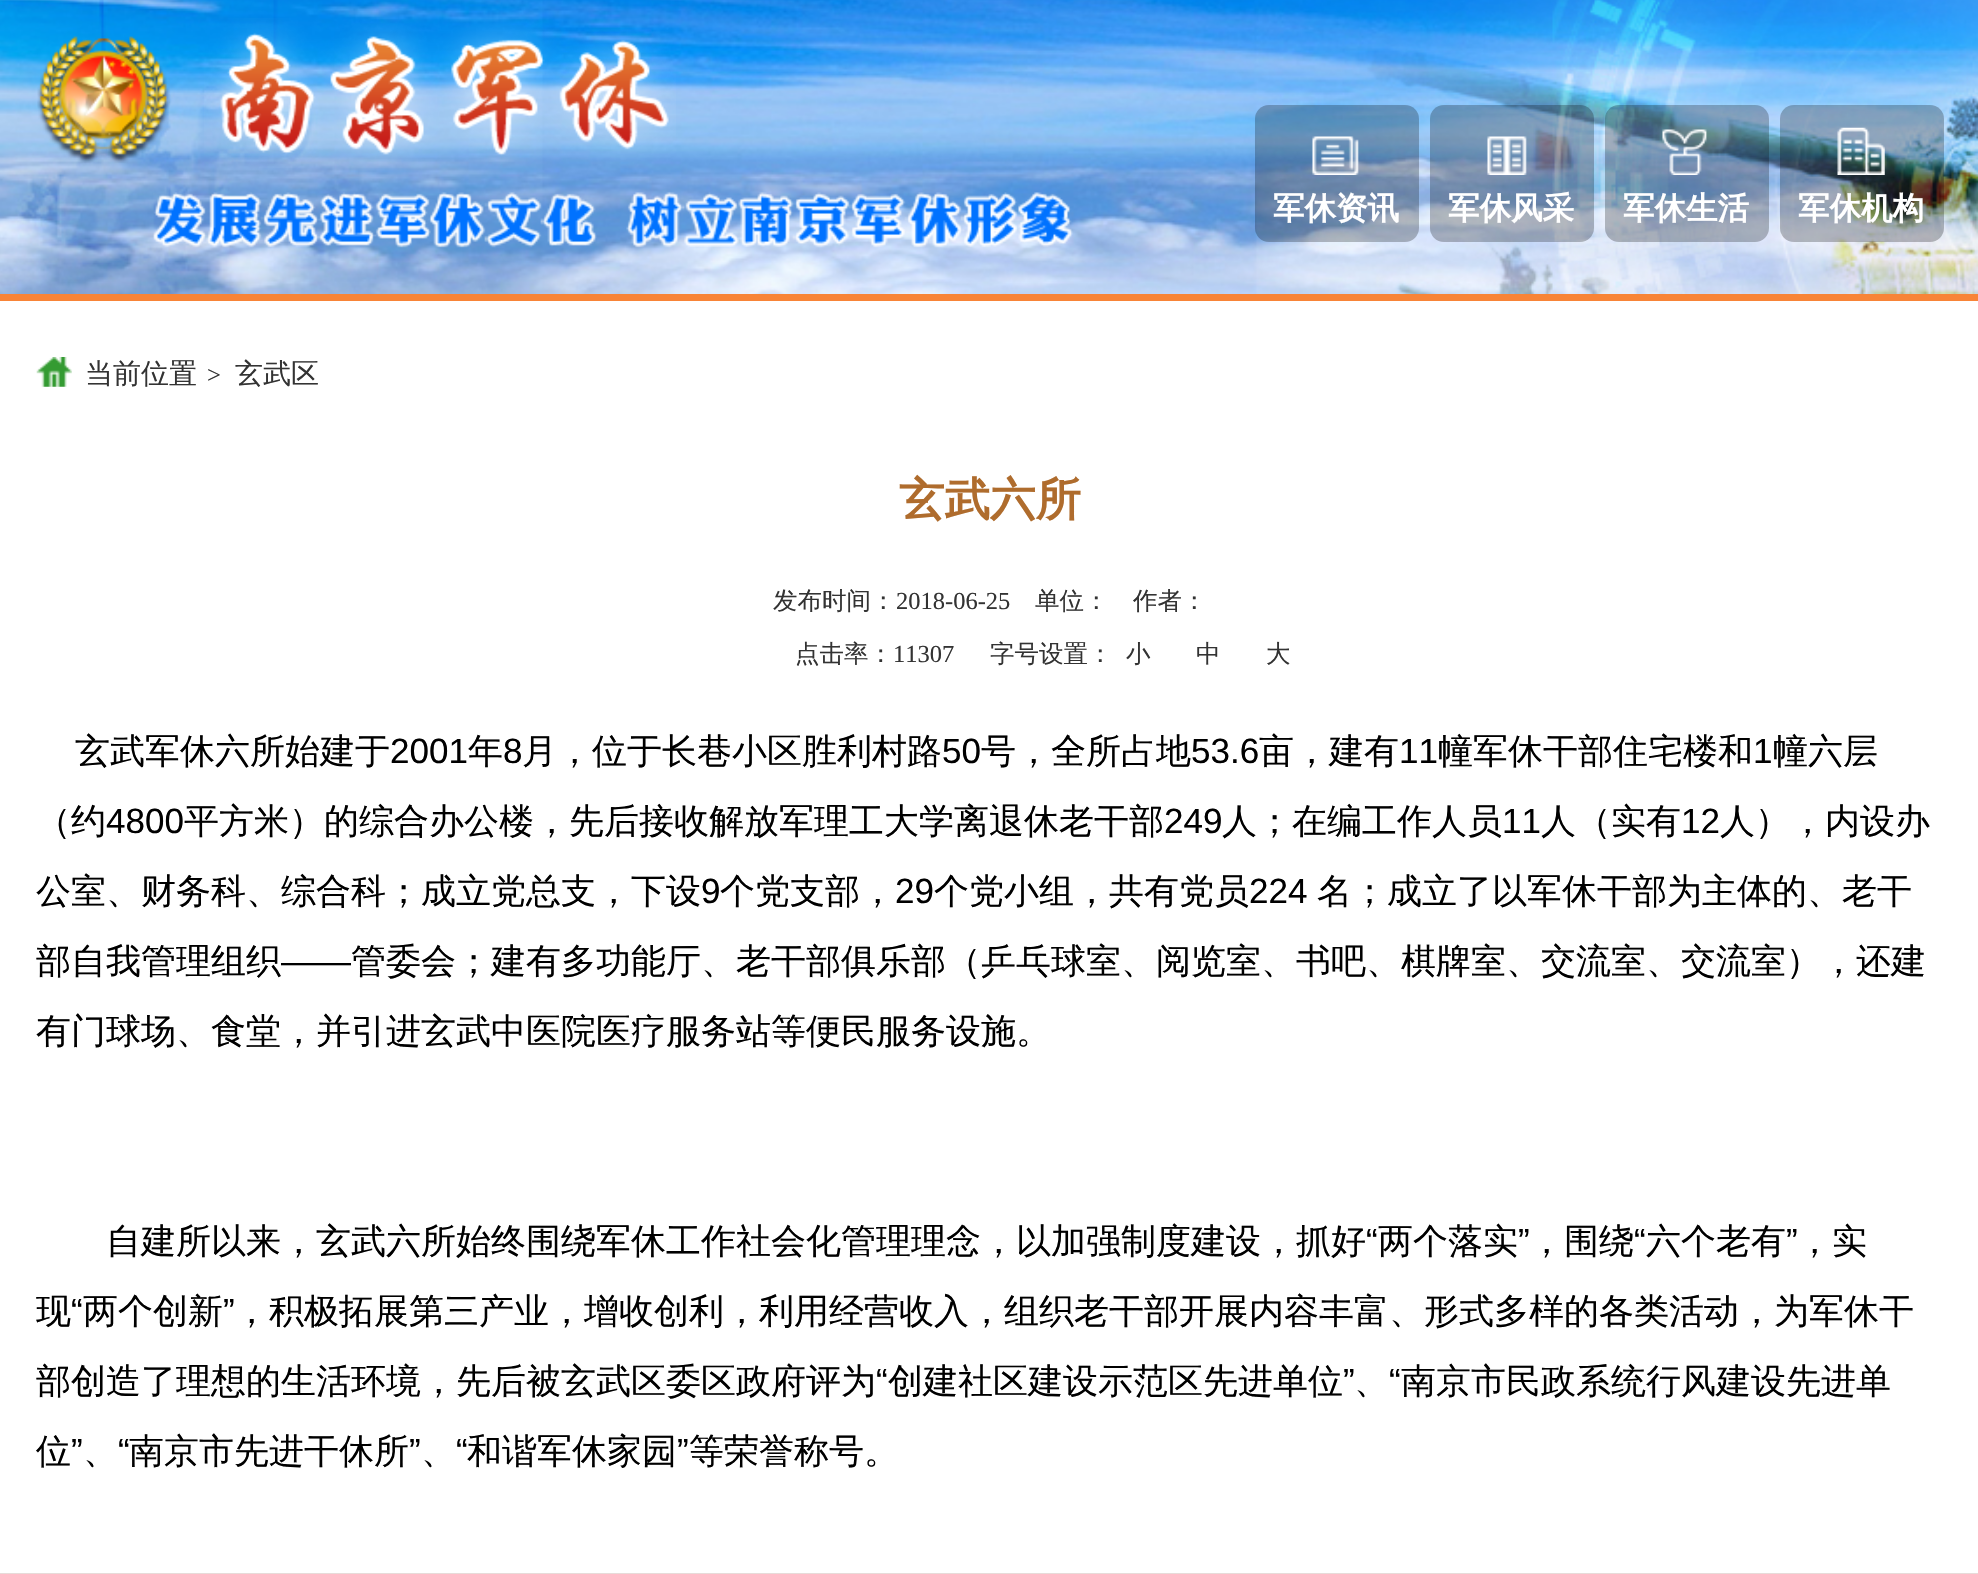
void draw(SkCanvas* c) {
SkPaint p;
p.setAntiAlias(true);
auto F=[&](const char* family, int weight, float size, bool italic = false){SkFontStyle style(weight, SkFontStyle::kNormal_Width,italic ? SkFontStyle::kItalic_Slant : SkFontStyle::kUpright_Slant);SkFont result(fontMgr->matchFamilyStyle(family, style), size);result.setSubpixel(true);return result;};
auto T=[&](const char* s, float x, float y, const SkFont& font){c->drawString(s, x, y, font, p);};
auto R=[&](float x, float y, float w, float h){c->drawRect(SkRect::MakeXYWH(x, y, w, h), p);};
auto Q=[&](float x, float y, float w, float h, float radius){c->drawRoundRect(SkRect::MakeXYWH(x, y, w, h), radius, radius, p);};
auto I=[&](const char* path, float x, float y, float w, float h){auto image = SkImages::DeferredFromEncodedData(SkData::MakeFromFileName(path));c->drawImageRect(image, SkRect::MakeXYWH(x, y, w, h), SkSamplingOptions());};
c->clear(0xffffffff);
I("1.png",0,0,1978,294);
p.setColor(0xfff88437);
R(0,294,1978,7);
I("2.png",37,36,133,127);
I("3.png",204,18,472,150);
I("4.png",153,192,54,56);
I("5.png",206,192,57,56);
I("6.png",262,192,57,56);
I("7.png",318,192,57,55);
I("8.png",374,193,57,55);
I("9.png",430,192,57,56);
I("10.png",486,192,57,56);
I("11.png",542,193,55,54);
I("12.png",626,192,57,56);
I("13.png",682,192,57,55);
I("14.png",738,192,57,55);
I("15.png",794,192,57,56);
I("16.png",850,193,57,55);
I("17.png",906,192,57,56);
I("18.png",962,192,56,55);
I("19.png",1018,192,55,55);
p.setColor(0x40000000);
Q(1255,105,164,137,14);
I("20.png",1312,136,47,39);
auto f1 = F("WenQuanYi Zen Hei",700,31.5);
p.setColor(0xffffffff);
T("军休资讯",1273,219,f1);
p.setColor(0x40000000);
Q(1430,105,164,137,14);
I("21.png",1487,136,40,39);
p.setColor(0xffffffff);
T("军休风采",1448,219,f1);
p.setColor(0x40000000);
Q(1605,105,164,137,14);
I("22.png",1662,129,45,46);
p.setColor(0xffffffff);
T("军休生活",1623,219,f1);
p.setColor(0x40000000);
Q(1780,105,164,137,14);
I("23.png",1837,127,48,48);
p.setColor(0xffffffff);
T("军休机构",1798,219,f1);
I("24.png",36,357,36,30);
auto f2 = F("WenQuanYi Zen Hei",500,28);
p.setColor(0xff333333);
T("当前位置",85,383,f2);
auto f3 = F("Liberation Serif",400,24.5);
T(">",207,383,f3);
T("玄武区",235,383,f2);
auto f4 = F("WenQuanYi Zen Hei",700,45.5);
p.setColor(0xffaf6c2d);
T("玄武六所",899,515,f4);
auto f5 = F("WenQuanYi Zen Hei",500,24.5);
p.setColor(0xff333333);
T("发布时间：",773,609,f5);
T("2018-06-25",896,609,f3);
T("单位：",1035,609,f5);
T("作者：",1133,609,f5);
T("点击率：",795,662,f5);
T("11307",893,662,f3);
T("字号设置：",990,662,f5);
T("小",1126,662,f5);
T("中",1196,662,f5);
T("大",1266,662,f5);
auto f6 = F("WenQuanYi Zen Hei",500,35);
p.setColor(0xff000000);
T("玄武军休六所始建于",75,763,f6);
auto f7 = F("Liberation Sans",400,35);
T("2001",390,763,f7);
T("年",468,763,f6);
T("8",503,763,f7);
T("月，位于长巷小区胜利村路",522,763,f6);
T("50",942,763,f7);
T("号，全所占地",981,763,f6);
T("53.6",1191,763,f7);
T("亩，建有",1259,763,f6);
T("11",1399,763,f7);
T("幢军休干部住宅楼和",1438,763,f6);
T("1",1753,763,f7);
T("幢六层",1773,763,f6);
T("（约",36,833,f6);
T("4800",106,833,f7);
T("平方米）的综合办公楼，先后接收解放军理工大学离退休老干部",184,833,f6);
T("249",1164,833,f7);
T("人；在编工作人员",1222,833,f6);
T("11",1502,833,f7);
T("人（实有",1541,833,f6);
T("12",1681,833,f7);
T("人），内设办",1720,833,f6);
T("公室、财务科、综合科；成立党总支，下设",36,903,f6);
T("9",701,903,f7);
T("个党支部，",720,903,f6);
T("29",895,903,f7);
T("个党小组，共有党员",934,903,f6);
T("224",1249,903,f7);
T("名；成立了以军休干部为主体的、老干",1317,903,f6);
T("部自我管理组织",36,973,f6);
T("——",281,973,f7);
T("管委会；建有多功能厅、老干部俱乐部（乒乓球室、阅览室、书吧、棋牌室、交流室、交流室），还建",351,973,f6);
T("有门球场、食堂，并引进玄武中医院医疗服务站等便民服务设施。",36,1043,f6);
T("自建所以来，玄武六所始终围绕军休工作社会化管理理念，以加强制度建设，抓好",106,1253,f6);
T("“",1366,1253,f7);
T("两个落实",1378,1253,f6);
T("”",1518,1253,f7);
T("，围绕",1529,1253,f6);
T("“",1634,1253,f7);
T("六个老有",1646,1253,f6);
T("”",1786,1253,f7);
T("，实",1797,1253,f6);
T("现",36,1323,f6);
T("“",71,1323,f7);
T("两个创新",83,1323,f6);
T("”",223,1323,f7);
T("，积极拓展第三产业，增收创利，利用经营收入，组织老干部开展内容丰富、形式多样的各类活动，为军休干",234,1323,f6);
T("部创造了理想的生活环境，先后被玄武区委区政府评为",36,1393,f6);
T("“",876,1393,f7);
T("创建社区建设示范区先进单位",888,1393,f6);
T("”",1343,1393,f7);
T("“",1389,1393,f7);
T("南京市民政系统行风建设先进单",1401,1393,f6);
T("、",1354,1393,f6);
T("位",36,1463,f6);
T("”",71,1463,f7);
T("“",118,1463,f7);
T("南京市先进干休所",129,1463,f6);
T("”",409,1463,f7);
T("“",456,1463,f7);
T("和谐军休家园",467,1463,f6);
T("”",677,1463,f7);
T("等荣誉称号。",689,1463,f6);
T("、",83,1463,f6);
T("、",421,1463,f6);
p.setColor(0xffe7dbd9);
R(0,1573,1978,1);
}
